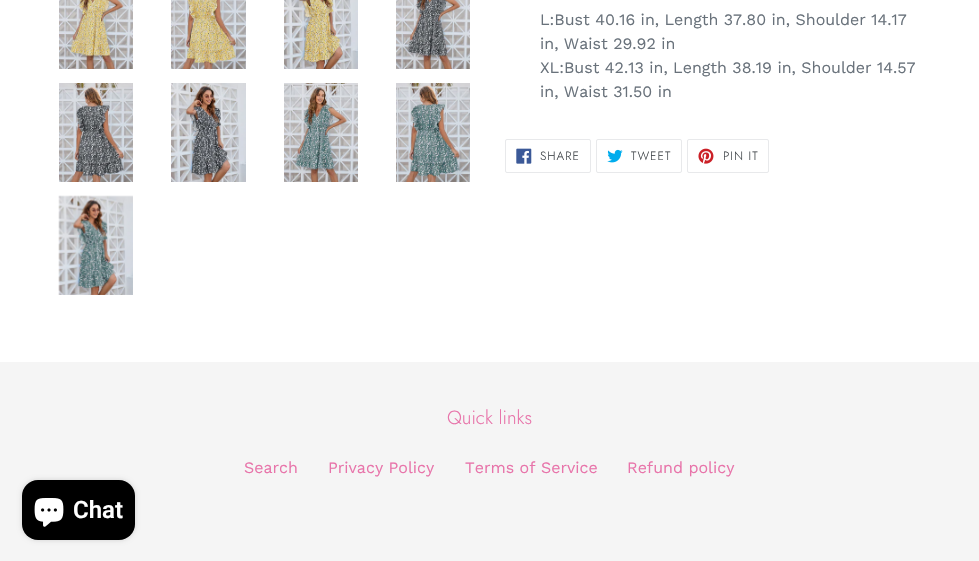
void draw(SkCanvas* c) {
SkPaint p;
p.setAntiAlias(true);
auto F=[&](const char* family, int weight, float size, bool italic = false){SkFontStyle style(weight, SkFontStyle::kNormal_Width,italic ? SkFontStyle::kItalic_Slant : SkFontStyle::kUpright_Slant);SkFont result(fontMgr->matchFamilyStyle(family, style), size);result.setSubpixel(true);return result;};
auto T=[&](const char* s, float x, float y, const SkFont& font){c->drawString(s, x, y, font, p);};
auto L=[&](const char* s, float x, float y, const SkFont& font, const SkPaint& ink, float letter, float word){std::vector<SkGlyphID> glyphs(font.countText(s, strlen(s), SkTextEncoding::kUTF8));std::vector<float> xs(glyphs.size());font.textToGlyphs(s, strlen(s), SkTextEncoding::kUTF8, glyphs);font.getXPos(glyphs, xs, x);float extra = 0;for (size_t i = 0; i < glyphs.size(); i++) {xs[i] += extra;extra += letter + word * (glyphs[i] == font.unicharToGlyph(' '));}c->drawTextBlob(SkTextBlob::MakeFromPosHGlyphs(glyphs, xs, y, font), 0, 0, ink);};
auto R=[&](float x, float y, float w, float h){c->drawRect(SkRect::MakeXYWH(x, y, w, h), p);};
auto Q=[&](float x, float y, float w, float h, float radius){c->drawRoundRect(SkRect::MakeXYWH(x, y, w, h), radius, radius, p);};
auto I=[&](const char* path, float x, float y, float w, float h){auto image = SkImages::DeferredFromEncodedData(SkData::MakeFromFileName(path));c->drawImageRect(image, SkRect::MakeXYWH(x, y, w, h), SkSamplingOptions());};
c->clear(0xffffffff);
I("1.png",59,0,74,69);
I("2.png",171,0,75,69);
I("3.png",284,0,74,69);
I("4.png",396,0,74,69);
I("5.png",59,83,74,99);
I("6.png",171,83,75,99);
I("7.png",284,83,74,99);
I("8.png",396,83,74,99);
I("9.png",58,195,75,100);
auto f1 = F("Work Sans",400,16);
p.setColor(0xff69727b);
T("L:Bust 40.16 in, Length 37.80 in, Shoulder 14.17",540,25,f1);
T("in, Waist 29.92 in",540,49,f1);
T("XL:Bust 42.13 in, Length 38.19 in, Shoulder 14.57",540,73,f1);
T("in, Waist 31.50 in",540,97,f1);
p.setStroke(true);
p.setStrokeWidth(1);
p.setColor(0xffe8e9eb);
c->drawRoundRect(SkRect::MakeXYWH(505.5,139.5,85,33),1.5,1.5,p);
I("10.png",516,148,16,16);
auto f2 = F("Jost",300,12);
p.setStroke(false);
p.setColor(0xff3d4246);
L("SHARE",540,160,f2,p,1,0);
p.setStroke(true);
p.setColor(0xffe8e9eb);
c->drawRoundRect(SkRect::MakeXYWH(596.5,139.5,85,33),1.5,1.5,p);
I("11.png",607,149,16,14);
p.setStroke(false);
p.setColor(0xff3d4246);
L("TWEET",631,160,f2,p,1,0);
p.setStroke(true);
p.setColor(0xffe8e9eb);
c->drawRoundRect(SkRect::MakeXYWH(687.5,139.5,81,33),1.5,1.5,p);
I("12.png",698,148,16,16);
p.setStroke(false);
p.setColor(0xff3d4246);
L("PIN IT",723,160,f2,p,1,0);
p.setColor(0xfff5f5f5);
R(0,362,979,199);
auto f3 = F("Jost",300,19);
p.setColor(0xffe874aa);
T("Quick links",447,424,f3);
T("Search",244,473,f1);
T("Privacy Policy",328,473,f1);
T("Terms of Service",465,473,f1);
T("Refund policy",627,473,f1);
p.setColor(0x26000000);
p.setMaskFilter(SkMaskFilter::MakeBlur(kNormal_SkBlurStyle, 2.5));
c->drawRoundRect(SkRect::MakeXYWH(22,480,113,60),16,16,p);
p.setMaskFilter(nullptr);
p.setColor(0xff000000);
Q(22,480,113,60,16);
I("13.png",34,498,30,29);
auto f4 = F("Roboto",600,24);
p.setColor(0xffffffff);
T("Chat",73,518,f4);
}
